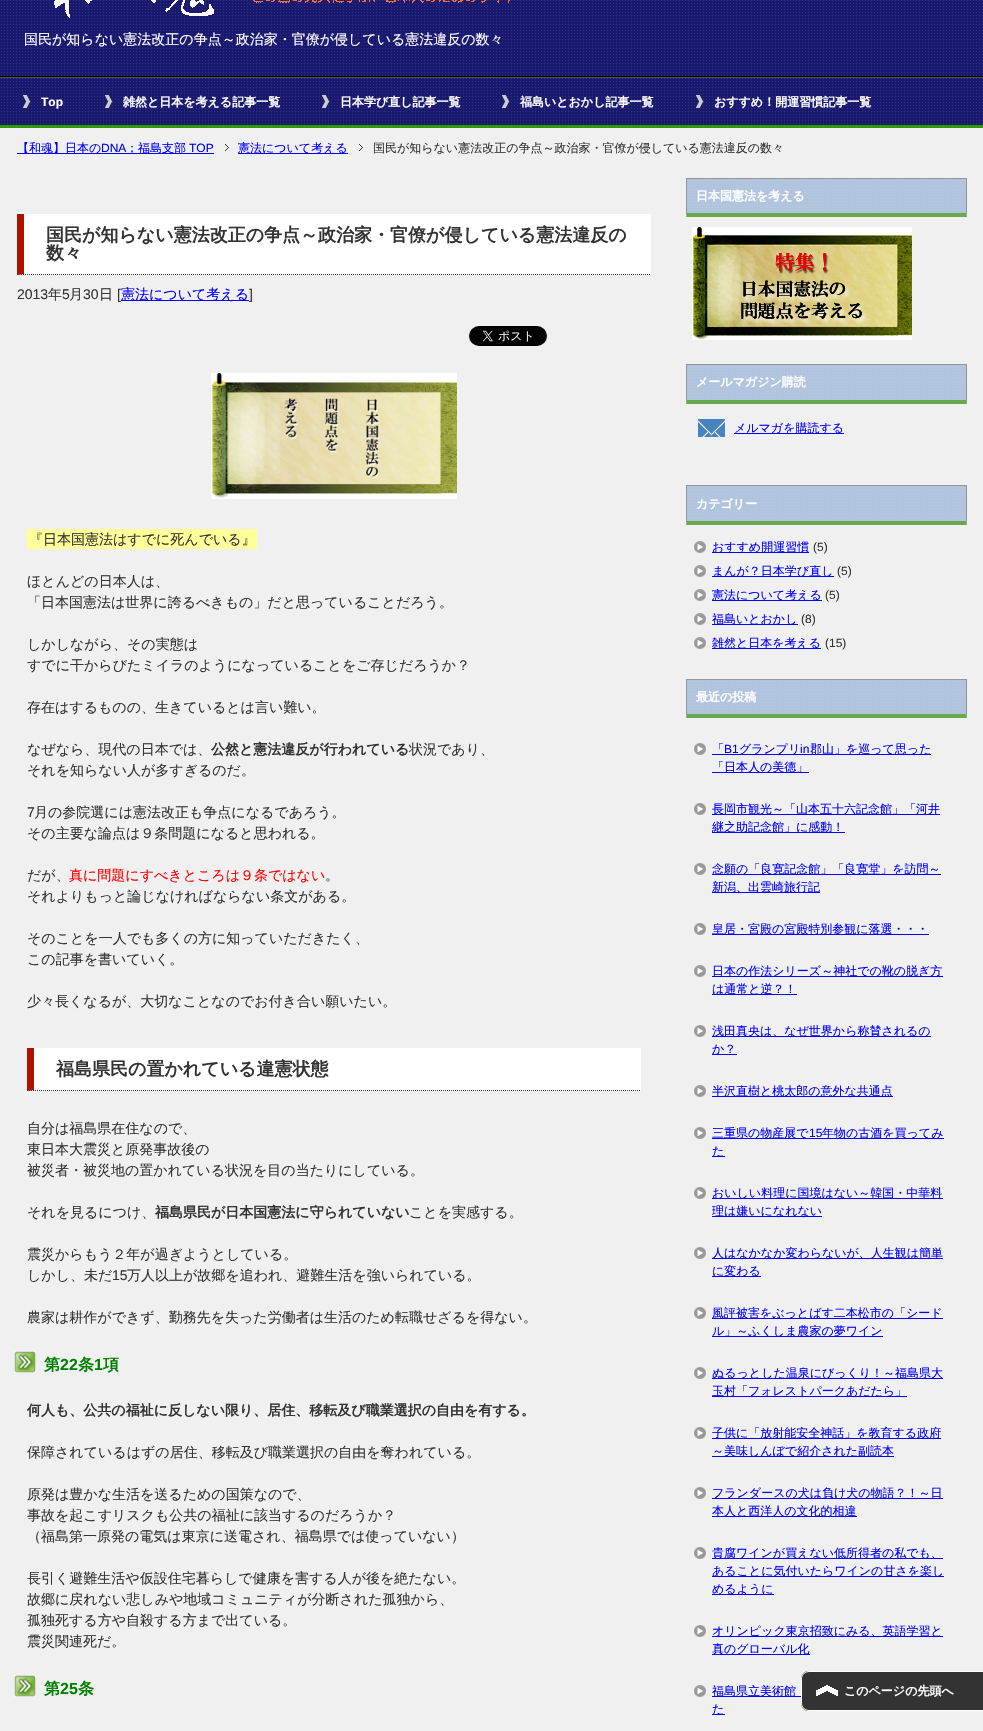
void draw(SkCanvas* c) {
SkPaint p;
p.setAntiAlias(true);
auto F=[&](const char* family, int weight, float size, bool italic = false){SkFontStyle style(weight, SkFontStyle::kNormal_Width,italic ? SkFontStyle::kItalic_Slant : SkFontStyle::kUpright_Slant);SkFont result(fontMgr->matchFamilyStyle(family, style), size);result.setSubpixel(true);return result;};
auto T=[&](const char* s, float x, float y, const SkFont& font){c->drawString(s, x, y, font, p);};
auto R=[&](float x, float y, float w, float h){c->drawRect(SkRect::MakeXYWH(x, y, w, h), p);};
auto I=[&](const char* path, float x, float y, float w, float h){auto image = SkImages::DeferredFromEncodedData(SkData::MakeFromFileName(path));c->drawImageRect(image, SkRect::MakeXYWH(x, y, w, h), SkSamplingOptions());};
auto P=[&](const char* data, bool evenOdd = false){SkPath result = *SkParsePath::FromSVGString(data);if (evenOdd) result.setFillType(SkPathFillType::kEvenOdd);return result;};
c->clear(0xff191970);
I("1.png",1,0,982,124);
p.setColor(0xff000000);
R(0,76,983,1);
I("2.png",54,0,456,18);
auto f1 = F("WenQuanYi Zen Hei",500,14);
p.setColor(0xffffffff);
T("国民が知らない憲法改正の争点～政治家・官僚が侵している憲法違反の数々",24,44,f1);
p.setColor(0xff555555);
R(0,77,983,1);
p.setColor(0xff339900);
R(0,125,983,3);
I("3.png",23,95,8,13);
auto f2 = F("Liberation Sans",700,12);
p.setColor(0xffffffff);
T("Top",41,106,f2);
I("4.png",105,95,8,13);
auto f3 = F("WenQuanYi Zen Hei",700,12);
T("雑然と日本を考える記事一覧",123,106,f3);
I("5.png",322,95,8,13);
T("日本学び直し記事一覧",340,106,f3);
I("5.png",502,95,8,13);
T("福島いとおかし記事一覧",520,106,f3);
I("4.png",696,95,8,13);
T("おすすめ！開運習慣記事一覧",714,106,f3);
p.setColor(0xfff0f0f0);
R(0,128,983,1603);
p.setColor(0xff0000ff);
R(17,153,197,1);
auto f4 = F("WenQuanYi Zen Hei",500,12);
T("【和魂】日本の",17,152,f4);
auto f5 = F("Liberation Sans",400,12);
T("DNA",101,152,f5);
T("；福島支部",126,152,f4);
T("TOP",189,152,f5);
I("6.png",225,144,4,7);
R(238,153,110,1);
T("憲法について考える",238,152,f4);
I("6.png",359,144,4,7);
p.setColor(0xff333333);
T("国民が知らない憲法改正の争点～政治家・官僚が侵している憲法違反の数々",373,152,f4);
p.setColor(0xffffffff);
R(18,214,633,61);
p.setStroke(true);
p.setStrokeWidth(1);
p.setColor(0xff333333);
p.setPathEffect(SkDashPathEffect::Make({{1,1}}, 0));
c->drawPath(P("M17 274.5h634"),p);
p.setPathEffect(nullptr);
p.setStroke(false);
p.setColor(0xffae1100);
c->drawPath(P("M17 275v-61h7v60z"),p);
auto f6 = F("WenQuanYi Zen Hei",700,18);
p.setColor(0xff333333);
T("国民が知らない憲法改正の争点～政治家・官僚が侵している憲法違反の",46,241,f6);
T("数々",46,259,f6);
auto f7 = F("Liberation Sans",400,14);
T("2013",17,299,f7);
T("年",48,299,f1);
T("5",62,299,f7);
T("月",69,299,f1);
T("30",83,299,f7);
T("日",99,299,f1);
T("[",117,299,f7);
p.setColor(0xff0000ff);
R(121,300,128,1);
T("憲法について考える",121,299,f1);
p.setColor(0xff333333);
T("]",249,299,f7);
I("7.png",469,326,78,20);
I("8.png",211,373,246,126);
p.setColor(0xffffff99);
R(27,529,230,20);
p.setColor(0xff333333);
T("『日本国憲法はすでに死んでいる』",29,544,f1);
T("ほとんどの日本人は、",27,586,f1);
T("「日本国憲法は世界に誇るべきもの」だと思っていることだろう。",27,607,f1);
T("しかしながら、その実態は",27,649,f1);
T("すでに干からびたミイラのようになっていることをご存じだろうか？",27,670,f1);
T("存在はするものの、生きているとは言い難い。",27,712,f1);
T("なぜなら、現代の日本では、",27,754,f1);
auto f8 = F("WenQuanYi Zen Hei",700,14);
T("公然と憲法違反が行われている",211,754,f8);
T("状況であり、",409,754,f1);
T("それを知らない人が多すぎるのだ。",27,775,f1);
T("7",27,817,f7);
T("月の参院選には憲法改正も争点になるであろう。",34,817,f1);
T("その主要な論点は９条問題になると思われる。",27,838,f1);
T("だが、",27,880,f1);
p.setColor(0xffff0000);
T("真に問題にすべきところは９条ではない",69,880,f1);
p.setColor(0xff333333);
T("。",325,880,f1);
T("それよりもっと論じなければならない条文がある。",27,901,f1);
T("そのことを一人でも多くの方に知っていただきたく、",27,943,f1);
T("この記事を書いていく。",27,964,f1);
T("少々長くなるが、大切なことなのでお付き合い願いたい。",27,1006,f1);
p.setColor(0xffffffff);
R(28,1048,613,43);
p.setStroke(true);
p.setColor(0xff333333);
p.setPathEffect(SkDashPathEffect::Make({{1,1}}, 0));
c->drawPath(P("M27 1090.5h614"),p);
p.setPathEffect(nullptr);
p.setStroke(false);
p.setColor(0xffae1100);
c->drawPath(P("M27 1091v-43h7v42z"),p);
p.setColor(0xff333333);
T("福島県民の置かれている違憲状態",56,1075,f6);
T("自分は福島県在住なので、",27,1133,f1);
T("東日本大震災と原発事故後の",27,1154,f1);
T("被災者・被災地の置かれている状況を目の当たりにしている。",27,1175,f1);
T("それを見るにつけ、",27,1217,f1);
T("福島県民が日本国憲法に守られていない",155,1217,f8);
T("ことを実感する。",409,1217,f1);
T("震災からもう２年が過ぎようとしている。",27,1259,f1);
T("しかし、未だ",27,1280,f1);
T("15",112,1280,f7);
T("万人以上が故郷を追われ、避難生活を強いられている。",127,1280,f1);
T("農家は耕作ができず、勤務先を失った労働者は生活のため転職せざるを得ない。",27,1322,f1);
I("9.png",14,1351,22,22);
auto f9 = F("WenQuanYi Zen Hei",700,16);
p.setColor(0xff008000);
T("第",44,1370,f9);
auto f10 = F("Liberation Sans",700,16);
T("22",60,1370,f10);
T("条",78,1370,f9);
T("1",94,1370,f10);
T("項",103,1370,f9);
p.setColor(0xff333333);
T("何人も、公共の福祉に反しない限り、居住、移転及び職業選択の自由を有する。",27,1415,f8);
T("保障されているはずの居住、移転及び職業選択の自由を奪われている。",27,1457,f1);
T("原発は豊かな生活を送るための国策なので、",27,1499,f1);
T("事故を起こすリスクも公共の福祉に該当するのだろうか？",27,1520,f1);
T("（福島第一原発の電気は東京に送電され、福島県では使っていない）",27,1541,f1);
T("長引く避難生活や仮設住宅暮らしで健康を害する人が後を絶たない。",27,1583,f1);
T("故郷に戻れない悲しみや地域コミュニティが分断された孤独から、",27,1604,f1);
T("孤独死する方や自殺する方まで出ている。",27,1625,f1);
T("震災関連死だ。",27,1646,f1);
I("9.png",14,1675,22,22);
p.setColor(0xff008000);
T("第",44,1694,f9);
T("25",60,1694,f10);
T("条",78,1694,f9);
p.setColor(0xffb0c4de);
R(687,179,279,34);
I("10.png",688,180,277,31);
p.setColor(0xff959595);
R(686,178,281,1);
c->drawPath(P("M967 178v39l-1-4v-34z"),p);
p.setColor(0xff6aa84f);
c->drawPath(P("M967 217h-281l1-4h279z"),p);
p.setColor(0xff959595);
c->drawPath(P("M686 217v-39l1 1v34z"),p);
p.setColor(0xffffffff);
T("日本国憲法を考える",696,200,f3);
I("11.png",692,227,220,113);
p.setColor(0xffb0c4de);
R(687,365,279,35);
I("12.png",688,366,277,34);
p.setColor(0xff959595);
R(686,364,281,1);
c->drawPath(P("M967 364v40l-1-4v-35z"),p);
p.setColor(0xff6aa84f);
c->drawPath(P("M967 404h-281l1-4h279z"),p);
p.setColor(0xff959595);
c->drawPath(P("M686 404v-40l1 1v35z"),p);
p.setColor(0xffffffff);
T("メールマガジン購読",696,386,f3);
I("13.png",698,419,27,18);
p.setColor(0xff0000ff);
R(734,433,110,1);
T("メルマガを購読する",734,432,f4);
p.setColor(0xffb0c4de);
R(687,486,279,35);
I("12.png",688,487,277,34);
p.setColor(0xff959595);
R(686,485,281,1);
c->drawPath(P("M967 485v40l-1-4v-35z"),p);
p.setColor(0xff6aa84f);
c->drawPath(P("M967 525h-281l1-4h279z"),p);
p.setColor(0xff959595);
c->drawPath(P("M686 525v-40l1 1v35z"),p);
p.setColor(0xffffffff);
T("カテゴリー",696,508,f3);
I("14.png",694,541,12,12);
p.setColor(0xff0000ff);
R(712,552,97,1);
T("おすすめ開運習慣",712,551,f4);
p.setColor(0xff333333);
T("(5)",813,551,f5);
I("14.png",694,565,12,12);
p.setColor(0xff0000ff);
R(712,576,122,1);
T("まんが？日本学び直し",712,575,f4);
p.setColor(0xff333333);
T("(5)",837,575,f5);
I("14.png",694,589,12,12);
p.setColor(0xff0000ff);
R(712,600,110,1);
T("憲法について考える",712,599,f4);
p.setColor(0xff333333);
T("(5)",825,599,f5);
I("14.png",694,613,12,12);
p.setColor(0xff0000ff);
R(712,624,86,1);
T("福島いとおかし",712,623,f4);
p.setColor(0xff333333);
T("(8)",801,623,f5);
I("14.png",694,637,12,12);
p.setColor(0xff0000ff);
R(712,648,109,1);
T("雑然と日本を考える",712,647,f4);
p.setColor(0xff333333);
T("(15)",825,647,f5);
p.setColor(0xffb0c4de);
R(687,680,279,34);
I("10.png",688,681,277,31);
p.setColor(0xff959595);
R(686,679,281,1);
c->drawPath(P("M967 679v39l-1-4v-34z"),p);
p.setColor(0xff6aa84f);
c->drawPath(P("M967 718h-281l1-4h279z"),p);
p.setColor(0xff959595);
c->drawPath(P("M686 718v-39l1 1v34z"),p);
p.setColor(0xffffffff);
T("最近の投稿",696,701,f3);
I("14.png",694,743,12,12);
p.setColor(0xff0000ff);
T("「",712,753,f4);
T("B1",724,753,f5);
R(712,754,219,1);
T("グランプリ",739,753,f4);
T("in",800,753,f5);
T("郡山」を巡って思った",810,753,f4);
R(712,772,97,1);
T("「日本人の美徳」",712,771,f4);
I("14.png",694,803,12,12);
R(712,814,228,1);
T("長岡市観光～「山本五十六記念館」「河井",712,813,f4);
R(712,832,133,1);
T("継之助記念館」に感動！",712,831,f4);
I("14.png",694,863,12,12);
R(712,874,229,1);
T("念願の「良寛記念館」「良寛堂」を訪問～",712,873,f4);
R(712,892,108,1);
T("新潟、出雲崎旅行記",712,891,f4);
I("14.png",694,923,12,12);
R(712,934,217,1);
T("皇居・宮殿の宮殿特別参観に落選・・・",712,933,f4);
I("14.png",694,965,12,12);
R(712,976,231,1);
T("日本の作法シリーズ～神社での靴の脱ぎ方",712,975,f4);
R(712,994,85,1);
T("は通常と逆？！",712,993,f4);
I("14.png",694,1025,12,12);
R(712,1036,219,1);
T("浅田真央は、なぜ世界から称賛されるの",712,1035,f4);
R(712,1054,25,1);
T("か？",712,1053,f4);
I("14.png",694,1085,12,12);
R(712,1096,181,1);
T("半沢直樹と桃太郎の意外な共通点",712,1095,f4);
I("14.png",694,1127,12,12);
R(712,1138,232,1);
T("三重県の物産展で",712,1137,f4);
T("15",809,1137,f5);
T("年物の古酒を買ってみ",822,1137,f4);
R(712,1156,13,1);
T("た",712,1155,f4);
I("14.png",694,1187,12,12);
R(712,1198,231,1);
T("おいしい料理に国境はない～韓国・中華料",712,1197,f4);
R(712,1216,110,1);
T("理は嫌いになれない",712,1215,f4);
I("14.png",694,1247,12,12);
R(712,1258,231,1);
T("人はなかなか変わらないが、人生観は簡単",712,1257,f4);
R(712,1276,49,1);
T("に変わる",712,1275,f4);
I("14.png",694,1307,12,12);
R(712,1318,231,1);
T("風評被害をぶっとばす二本松市の「シード",712,1317,f4);
R(712,1336,171,1);
T("ル」～ふくしま農家の夢ワイン",712,1335,f4);
I("14.png",694,1367,12,12);
R(712,1378,231,1);
T("ぬるっとした温泉にびっくり！～福島県大",712,1377,f4);
R(712,1396,195,1);
T("玉村「フォレストパークあだたら」",712,1395,f4);
I("14.png",694,1427,12,12);
R(712,1438,229,1);
T("子供に「放射能安全神話」を教育する政府",712,1437,f4);
R(712,1456,182,1);
T("～美味しんぼで紹介された副読本",712,1455,f4);
I("14.png",694,1487,12,12);
R(712,1498,231,1);
T("フランダースの犬は負け犬の物語？！～日",712,1497,f4);
R(712,1516,145,1);
T("本人と西洋人の文化的相違",712,1515,f4);
I("14.png",694,1547,12,12);
R(712,1558,231,1);
T("貴腐ワインが買えない低所得者の私でも、",712,1557,f4);
R(712,1576,232,1);
T("あることに気付いたらワインの甘さを楽し",712,1575,f4);
R(712,1594,62,1);
T("めるように",712,1593,f4);
I("14.png",694,1625,12,12);
R(712,1636,231,1);
T("オリンピック東京招致にみる、英語学習と",712,1635,f4);
R(712,1654,98,1);
T("真のグローバル化",712,1653,f4);
I("14.png",694,1685,12,12);
R(712,1696,89,1);
T("福島県立美術館",712,1695,f4);
R(712,1714,13,1);
T("た",712,1713,f4);
p.setColor(0xff333333);
c->drawPath(P("M809 1671h174v40h-174c-4.5 0-8-3.5-8-8v-24c0-4.5 3.5-8 8-8z"),p);
I("15.png",816,1685,22,11);
p.setColor(0xffffffff);
c->drawPath(P("M809 1671h174v40h-174c-4 0-8-4-8-8v-24c0-4 4-8 8-8zm0 1h174v38h-174c-4 0-7-3-7-7v-24c0-4 3-7 7-7z",true),p);
T("このページの先頭へ",844,1695,f3);
}
